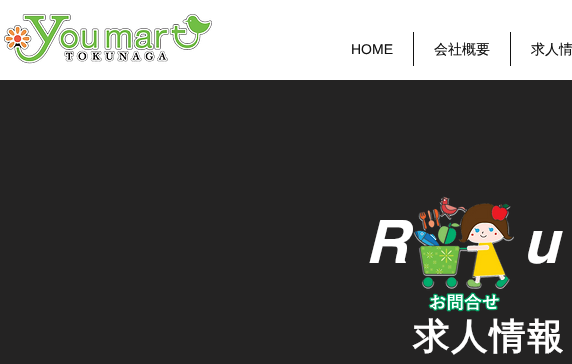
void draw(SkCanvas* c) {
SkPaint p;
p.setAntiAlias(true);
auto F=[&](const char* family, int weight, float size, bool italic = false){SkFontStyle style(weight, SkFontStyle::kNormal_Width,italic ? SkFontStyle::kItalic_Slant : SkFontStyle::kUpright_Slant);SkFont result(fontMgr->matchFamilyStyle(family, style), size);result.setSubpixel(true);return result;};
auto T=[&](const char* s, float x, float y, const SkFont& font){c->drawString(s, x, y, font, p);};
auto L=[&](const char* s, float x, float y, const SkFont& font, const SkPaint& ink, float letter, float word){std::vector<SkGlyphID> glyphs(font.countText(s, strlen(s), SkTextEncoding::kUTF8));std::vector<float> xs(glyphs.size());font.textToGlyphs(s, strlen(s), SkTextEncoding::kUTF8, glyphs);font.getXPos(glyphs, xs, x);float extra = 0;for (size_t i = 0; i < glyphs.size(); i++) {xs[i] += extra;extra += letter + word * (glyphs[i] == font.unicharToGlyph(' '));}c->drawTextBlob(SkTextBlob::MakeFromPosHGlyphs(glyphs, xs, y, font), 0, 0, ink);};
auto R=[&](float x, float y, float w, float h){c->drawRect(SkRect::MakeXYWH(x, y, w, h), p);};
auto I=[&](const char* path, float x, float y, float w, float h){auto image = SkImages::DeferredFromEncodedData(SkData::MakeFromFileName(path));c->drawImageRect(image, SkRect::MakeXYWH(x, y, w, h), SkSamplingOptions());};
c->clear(0xffffffff);
I("1.png",4,14,208,50);
auto f1 = F("Liberation Sans",400,14);
p.setColor(0xff121212);
T("HOME",351,54,f1);
R(413,32,1,34);
auto f2 = F("WenQuanYi Zen Hei",500,14);
T("会社概要",434,54,f2);
R(510,32,1,34);
T("求人情",531,54,f2);
p.setColor(0xff242323);
R(0,80,572,284);
I("2.png",413,196,101,116);
auto f3 = F("helvetica",700,60,true);
p.setColor(0xffffffff);
L("R",365,263,f3,p,6,0);
L("u",522,263,f3,p,6,0);
auto f4 = F("WenQuanYi Zen Hei",700,36);
L("求人情報",413,349,f4,p,2,0);
}
